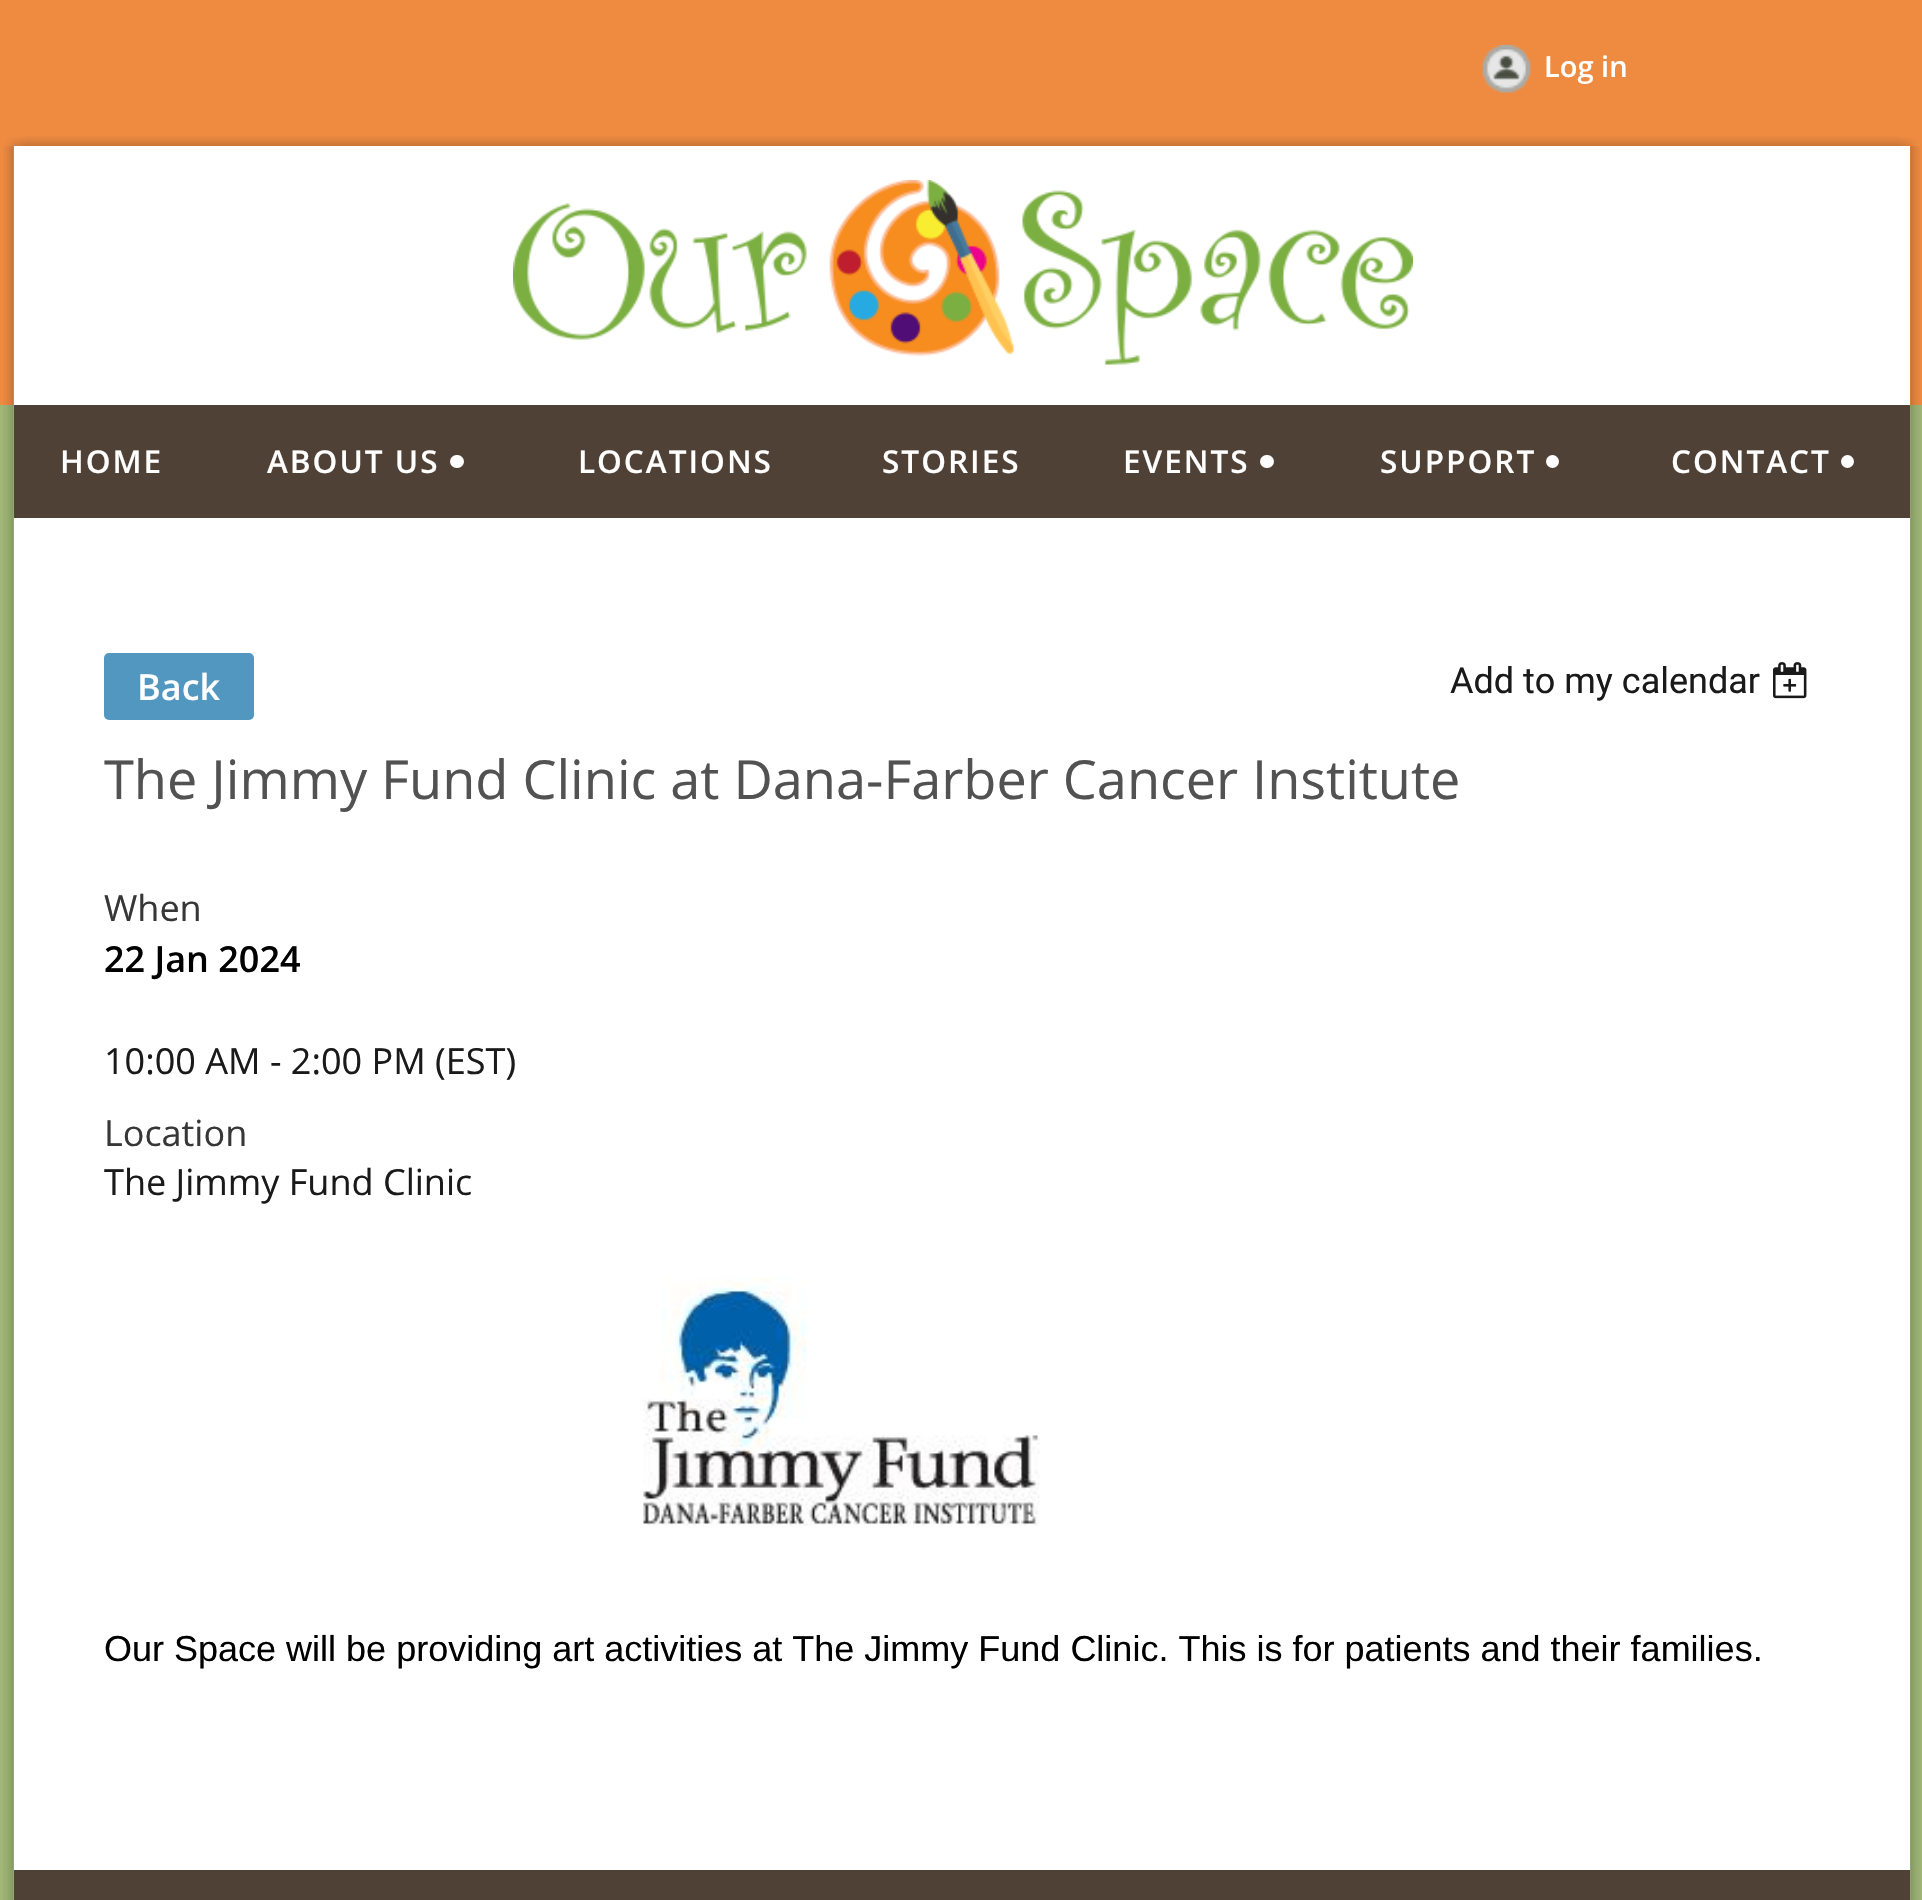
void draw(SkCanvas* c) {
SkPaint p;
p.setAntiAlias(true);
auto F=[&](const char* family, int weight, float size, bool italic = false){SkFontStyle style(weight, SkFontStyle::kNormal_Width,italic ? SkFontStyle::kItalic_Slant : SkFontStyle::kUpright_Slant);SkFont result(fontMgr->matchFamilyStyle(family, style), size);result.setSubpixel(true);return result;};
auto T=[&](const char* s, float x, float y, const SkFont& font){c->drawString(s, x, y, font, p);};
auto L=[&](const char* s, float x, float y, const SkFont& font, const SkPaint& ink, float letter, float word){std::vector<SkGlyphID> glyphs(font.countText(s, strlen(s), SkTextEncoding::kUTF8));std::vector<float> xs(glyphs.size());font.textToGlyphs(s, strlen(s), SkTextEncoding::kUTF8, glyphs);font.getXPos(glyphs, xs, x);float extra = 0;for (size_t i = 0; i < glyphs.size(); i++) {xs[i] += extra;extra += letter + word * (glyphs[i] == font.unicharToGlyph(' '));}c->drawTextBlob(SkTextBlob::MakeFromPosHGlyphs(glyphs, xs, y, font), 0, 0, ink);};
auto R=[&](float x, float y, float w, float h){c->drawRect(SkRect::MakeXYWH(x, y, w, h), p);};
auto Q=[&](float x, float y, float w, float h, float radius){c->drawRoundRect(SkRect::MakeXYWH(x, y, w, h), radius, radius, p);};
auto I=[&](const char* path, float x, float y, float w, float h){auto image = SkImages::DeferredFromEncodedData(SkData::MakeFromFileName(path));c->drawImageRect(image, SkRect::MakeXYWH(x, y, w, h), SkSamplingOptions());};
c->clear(0xffa0b778);
p.setColor(0xffef8b41);
R(0,0,1922,405);
I("1.png",1482,45,49,48);
auto f1 = F("Open Sans",600,29);
p.setColor(0xffffffff);
T("Log in",1544,77,f1);
I("2.png",6,137,1911,9);
I("3.png",24,136,1875,10);
I("4.png",3,146,1918,259);
R(14,146,1896,259);
I("5.png",513,180,900,185);
I("6.png",3,405,1918,113);
I("7.png",3,517,1918,1353);
p.setColor(0xff504136);
R(14,405,1896,113);
auto f2 = F("Open Sans",600,31.5);
p.setColor(0xffffffff);
L("HOME",60,473,f2,p,2,0);
L("ABOUT US",267,473,f2,p,2,0);
Q(450,455,14,13,6.5);
L("LOCATIONS",578,473,f2,p,2,0);
L("STORIES",882,473,f2,p,2,0);
L("EVENTS",1123,473,f2,p,2,0);
Q(1260,455,14,13,6.5);
L("SUPPORT",1380,473,f2,p,2,0);
c->drawCircle(1552.5,461.5,6.5,p);
L("CONTACT",1671,473,f2,p,2,0);
c->drawCircle(1847.5,461.5,6.5,p);
R(14,518,1896,1352);
p.setColor(0xff5297bf);
Q(104,653,150,67,5);
auto f3 = F("Open Sans",600,36);
p.setColor(0xffffffff);
T("Back",137,700,f3);
auto f4 = F("Roboto",400,36);
p.setColor(0xff1a1a1a);
T("Add to my calendar",1450,693,f4);
I("8.png",1773,662,34,37);
auto f5 = F("Open Sans",400,54);
p.setColor(0xff525252);
T("The Jimmy Fund Clinic at Dana-Farber Cancer Institute",104,799,f5);
auto f6 = F("Open Sans",400,36);
p.setColor(0xff373737);
T("When",104,921,f6);
p.setColor(0xff000000);
T("22 Jan 2024",104,972,f3);
p.setColor(0xff1a1a1a);
T("10:00 AM - 2:00 PM (EST)",104,1074,f6);
p.setColor(0xff373737);
T("Location",104,1146,f6);
c->save();
c->clipRect(SkRect::MakeXYWH(104,1157,1649,49));
p.setColor(0xff1a1a1a);
T("The Jimmy Fund Clinic",104,1195,f6);
c->restore();
I("9.png",643,1277,397,249);
auto f7 = F("Liberation Sans",400,36);
p.setColor(0xff000000);
T("Our Space will be providing art activities at The Jimmy Fund Clinic. This is for patients and their families.",104,1661,f7);
I("10.png",3,1869,1918,31);
p.setColor(0xff504136);
R(14,1870,1896,30);
}
